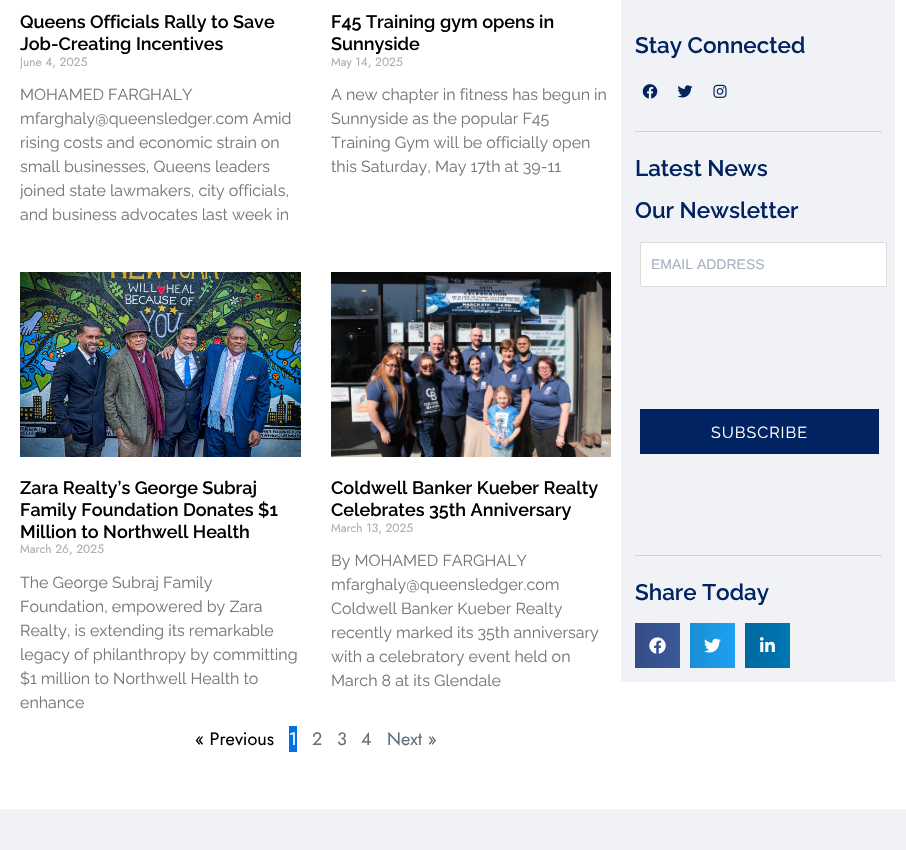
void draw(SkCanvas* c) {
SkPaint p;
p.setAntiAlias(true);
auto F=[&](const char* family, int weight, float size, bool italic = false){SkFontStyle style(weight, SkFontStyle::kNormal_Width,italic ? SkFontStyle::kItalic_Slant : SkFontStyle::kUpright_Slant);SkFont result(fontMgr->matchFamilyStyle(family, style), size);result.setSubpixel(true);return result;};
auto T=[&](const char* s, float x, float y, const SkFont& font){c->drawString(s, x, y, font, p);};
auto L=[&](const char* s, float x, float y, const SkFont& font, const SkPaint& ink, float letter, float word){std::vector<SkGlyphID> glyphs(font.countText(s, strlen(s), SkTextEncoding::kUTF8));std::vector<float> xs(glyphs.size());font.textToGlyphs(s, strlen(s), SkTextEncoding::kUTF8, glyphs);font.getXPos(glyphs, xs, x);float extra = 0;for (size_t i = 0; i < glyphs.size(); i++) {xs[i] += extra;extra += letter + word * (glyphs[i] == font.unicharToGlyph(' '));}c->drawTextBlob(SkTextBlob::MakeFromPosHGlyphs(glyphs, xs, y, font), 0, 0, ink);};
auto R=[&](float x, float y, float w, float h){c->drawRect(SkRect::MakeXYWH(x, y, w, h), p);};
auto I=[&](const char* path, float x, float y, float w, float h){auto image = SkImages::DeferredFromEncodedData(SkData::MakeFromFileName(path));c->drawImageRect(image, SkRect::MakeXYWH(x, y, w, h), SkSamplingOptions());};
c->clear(0xffffffff);
auto f1 = F("Raleway",600,18);
p.setColor(0xff000000);
T("Queens Officials Rally to Save",20,28,f1);
T("Job-Creating Incentives",20,50,f1);
c->save();
c->clipRect(SkRect::MakeXYWH(20,0,281,237));
auto f2 = F("Jost",400,12);
p.setColor(0xffadadad);
T("June 4, 2025",20,66,f2);
c->restore();
auto f3 = F("Raleway",400,16);
p.setColor(0xff777777);
T("MOHAMED FARGHALY",20,100,f3);
T("mfarghaly@queensledger.com Amid",20,124,f3);
T("rising costs and economic strain on",20,148,f3);
T("small businesses, Queens leaders",20,172,f3);
c->save();
c->clipRect(SkRect::MakeXYWH(20,0,281,237));
T("joined state lawmakers, city officials,",20,196,f3);
c->restore();
T("and business advocates last week in",20,220,f3);
p.setColor(0xff000000);
T("F45 Training gym opens in",331,28,f1);
T("Sunnyside",331,50,f1);
p.setColor(0xffadadad);
T("May 14, 2025",331,66,f2);
p.setColor(0xff777777);
T("A new chapter in fitness has begun in",331,100,f3);
T("Sunnyside as the popular F45",331,124,f3);
T("Training Gym will be officially open",331,148,f3);
T("this Saturday, May 17th at 39-11",331,172,f3);
I("1.png",20,272,281,185);
p.setColor(0xff000000);
T("Zara Realty’s George Subraj",20,494,f1);
T("Family Foundation Donates $1",20,516,f1);
T("Million to Northwell Health",20,538,f1);
p.setColor(0xffadadad);
T("March 26, 2025",20,553,f2);
p.setColor(0xff777777);
T("The George Subraj Family",20,588,f3);
T("Foundation, empowered by Zara",20,612,f3);
T("Realty, is extending its remarkable",20,636,f3);
T("legacy of philanthropy by committing",20,660,f3);
T("$1 million to Northwell Health to",20,684,f3);
T("enhance",20,708,f3);
I("2.png",331,272,280,185);
p.setColor(0xff000000);
T("Coldwell Banker Kueber Realty",331,494,f1);
T("Celebrates 35th Anniversary",331,516,f1);
p.setColor(0xffadadad);
T("March 13, 2025",331,532,f2);
p.setColor(0xff777777);
T("By MOHAMED FARGHALY",331,566,f3);
T("mfarghaly@queensledger.com",331,590,f3);
T("Coldwell Banker Kueber Realty",331,614,f3);
T("recently marked its 35th anniversary",331,638,f3);
T("with a celebratory event held on",331,662,f3);
T("March 8 at its Glendale",331,686,f3);
auto f4 = F("Jost",400,18);
p.setColor(0xff000000);
T("« Previous",195,745,f4);
p.setColor(0xff0072e5);
R(289,726,8,26);
p.setColor(0xffffffff);
T("1",289,745,f4);
p.setColor(0xff62707c);
T("2",312,745,f4);
T("3",337,745,f4);
T("4",361,745,f4);
T("Next »",387,745,f4);
p.setColor(0xfff0f2f6);
R(621,0,274,682);
auto f5 = F("Raleway",600,22.5);
p.setColor(0xff022361);
T("Stay Connected",635,53,f5);
I("3.png",642,84,16,15);
I("4.png",677,85,16,13);
I("5.png",713,84,14,14);
p.setColor(0xffd1d1d1);
R(635,131,247,1);
p.setColor(0xff022361);
T("Latest News",635,176,f5);
T("Our Newsletter",635,218,f5);
p.setColor(0xffffffff);
c->drawRoundRect(SkRect::MakeXYWH(640.5,242.5,246,44),1.5,1.5,p);
p.setStroke(true);
p.setStrokeWidth(1);
p.setColor(0xffdcdcdc);
c->drawRoundRect(SkRect::MakeXYWH(640.5,242.5,246,44),1.5,1.5,p);
auto f6 = F("Liberation Sans",400,14);
p.setStroke(false);
p.setColor(0xffa7b1c1);
T("EMAIL ADDRESS",651,269,f6);
p.setColor(0xff022361);
R(640,409,239,45);
p.setColor(0xffffffff);
L("SUBSCRIBE",711,438,f3,p,1,0);
p.setColor(0xffd1d1d1);
R(635,555,247,1);
p.setColor(0xff022361);
T("Share Today",635,600,f5);
{
const SkColor colors[] = {0xff344e86,0xff3b5998};
const float stops[] = {0,1};
const SkPoint ends[] = {{635,646}, {680,646}};
p.setShader(SkGradientShader::MakeLinear(ends, colors, stops, 2, SkTileMode::kClamp));
p.setAlpha(255);
}
R(635,623,45,45);
I("6.png",649,637,17,17);
{
const SkColor colors[] = {0xff1a8ed5,0xff1da1f2};
const float stops[] = {0,1};
const SkPoint ends[] = {{690,646}, {735,646}};
p.setShader(SkGradientShader::MakeLinear(ends, colors, stops, 2, SkTileMode::kClamp));
p.setAlpha(255);
}
R(690,623,45,45);
I("7.png",704,638,17,15);
{
const SkColor colors[] = {0xff00699f,0xff0077b5};
const float stops[] = {0,1};
const SkPoint ends[] = {{745,646}, {790,646}};
p.setShader(SkGradientShader::MakeLinear(ends, colors, stops, 2, SkTileMode::kClamp));
p.setAlpha(255);
}
R(745,623,45,45);
I("8.png",760,637,15,15);
p.setShader(nullptr);
p.setColor(0xfff0f2f6);
R(0,809,906,41);
}
